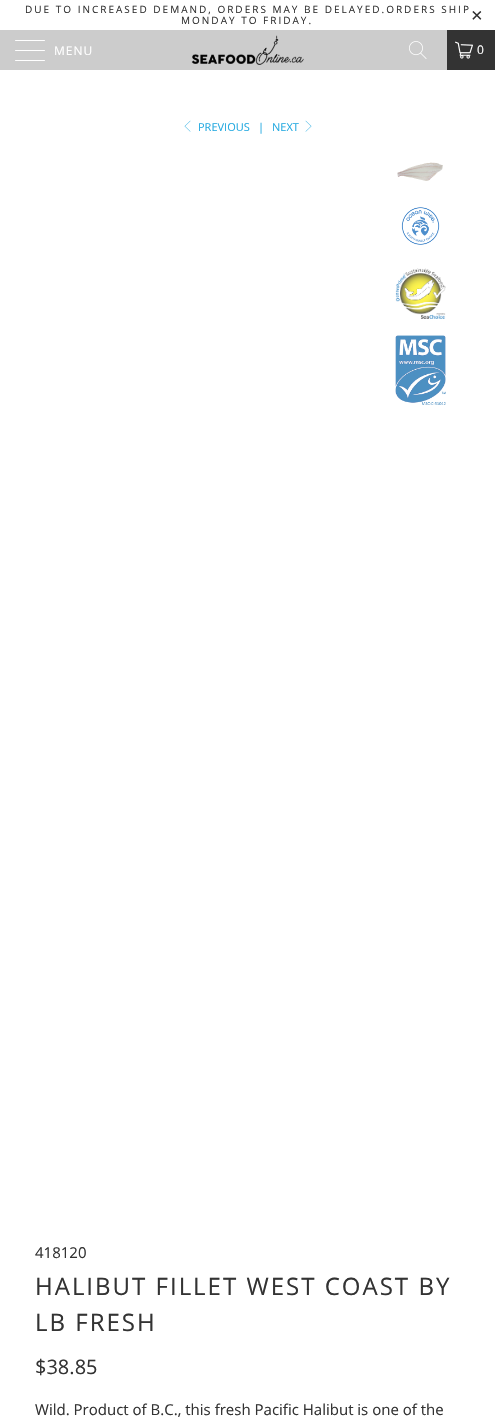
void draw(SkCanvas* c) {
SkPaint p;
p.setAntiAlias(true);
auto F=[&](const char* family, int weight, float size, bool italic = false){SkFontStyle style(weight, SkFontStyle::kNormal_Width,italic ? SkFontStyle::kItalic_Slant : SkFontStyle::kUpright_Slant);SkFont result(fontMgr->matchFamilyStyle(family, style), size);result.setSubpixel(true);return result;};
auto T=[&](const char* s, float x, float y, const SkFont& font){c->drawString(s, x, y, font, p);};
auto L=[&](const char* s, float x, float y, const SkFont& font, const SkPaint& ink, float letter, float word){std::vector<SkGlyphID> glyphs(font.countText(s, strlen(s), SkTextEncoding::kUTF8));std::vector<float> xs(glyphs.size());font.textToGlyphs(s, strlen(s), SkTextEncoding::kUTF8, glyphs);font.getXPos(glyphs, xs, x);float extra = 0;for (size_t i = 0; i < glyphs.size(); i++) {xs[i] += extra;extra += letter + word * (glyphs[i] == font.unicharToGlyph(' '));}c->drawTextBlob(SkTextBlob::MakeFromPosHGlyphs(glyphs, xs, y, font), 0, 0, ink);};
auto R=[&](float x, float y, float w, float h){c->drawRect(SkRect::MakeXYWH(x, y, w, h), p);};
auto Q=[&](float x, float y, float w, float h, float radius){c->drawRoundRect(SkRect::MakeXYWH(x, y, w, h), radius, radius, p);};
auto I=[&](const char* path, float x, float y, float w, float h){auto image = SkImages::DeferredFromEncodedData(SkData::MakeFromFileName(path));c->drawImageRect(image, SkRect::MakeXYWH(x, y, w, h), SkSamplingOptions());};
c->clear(0xffffffff);
auto f1 = F("Open Sans",400,10);
p.setColor(0xff333333);
L("DUE TO INCREASED DEMAND, ORDERS MAY BE DELAYED.ORDERS SHIP",25,13,f1,p,2,0);
L("MONDAY TO FRIDAY.",181,24,f1,p,2,0);
auto f2 = F("Liberation Sans",400,20);
L("×",471,22,f2,p,2,0);
p.setColor(0xffcccccc);
R(0,30,447,40);
p.setColor(0xffffffff);
Q(15,40,30,1,.5);
Q(15,50,30,1,.5);
Q(15,60,30,1,.5);
auto f3 = F("Open Sans",400,12);
L("MENU",54,55,f3,p,1,0);
I("1.png",191,35,113,30);
I("2.png",409,41,18,18);
p.setColor(0xff333333);
R(447,30,48,40);
I("3.png",455,41,18,18);
p.setColor(0xffffffff);
L("0",477,54,f3,p,1,0);
I("4.png",184,120,7,12);
auto f4 = F("Open Sans",400,11);
p.setColor(0xff25aae1);
T("PREVIOUS",198,131,f4);
T("|",258,131,f4);
T("NEXT",272,131,f4);
I("5.png",305,120,7,12);
I("6.png",397,162,46,19);
I("7.png",401,207,39,38);
I("8.png",395,268,51,51);
I("9.png",395,335,51,70);
auto f5 = F("Open Sans",400,15);
p.setColor(0xff333333);
T("418120",35,1258,f5);
auto f6 = F("Open Sans",400,24);
L("HALIBUT FILLET WEST COAST BY",35,1295,f6,p,2,0);
L("LB FRESH",35,1331,f6,p,2,0);
auto f7 = F("Open Sans",400,20);
T("$38.85",35,1374,f7);
T("Wild. Product of B.C., this fresh Pacific Halibut is one of the",35,1415,f5);
}
